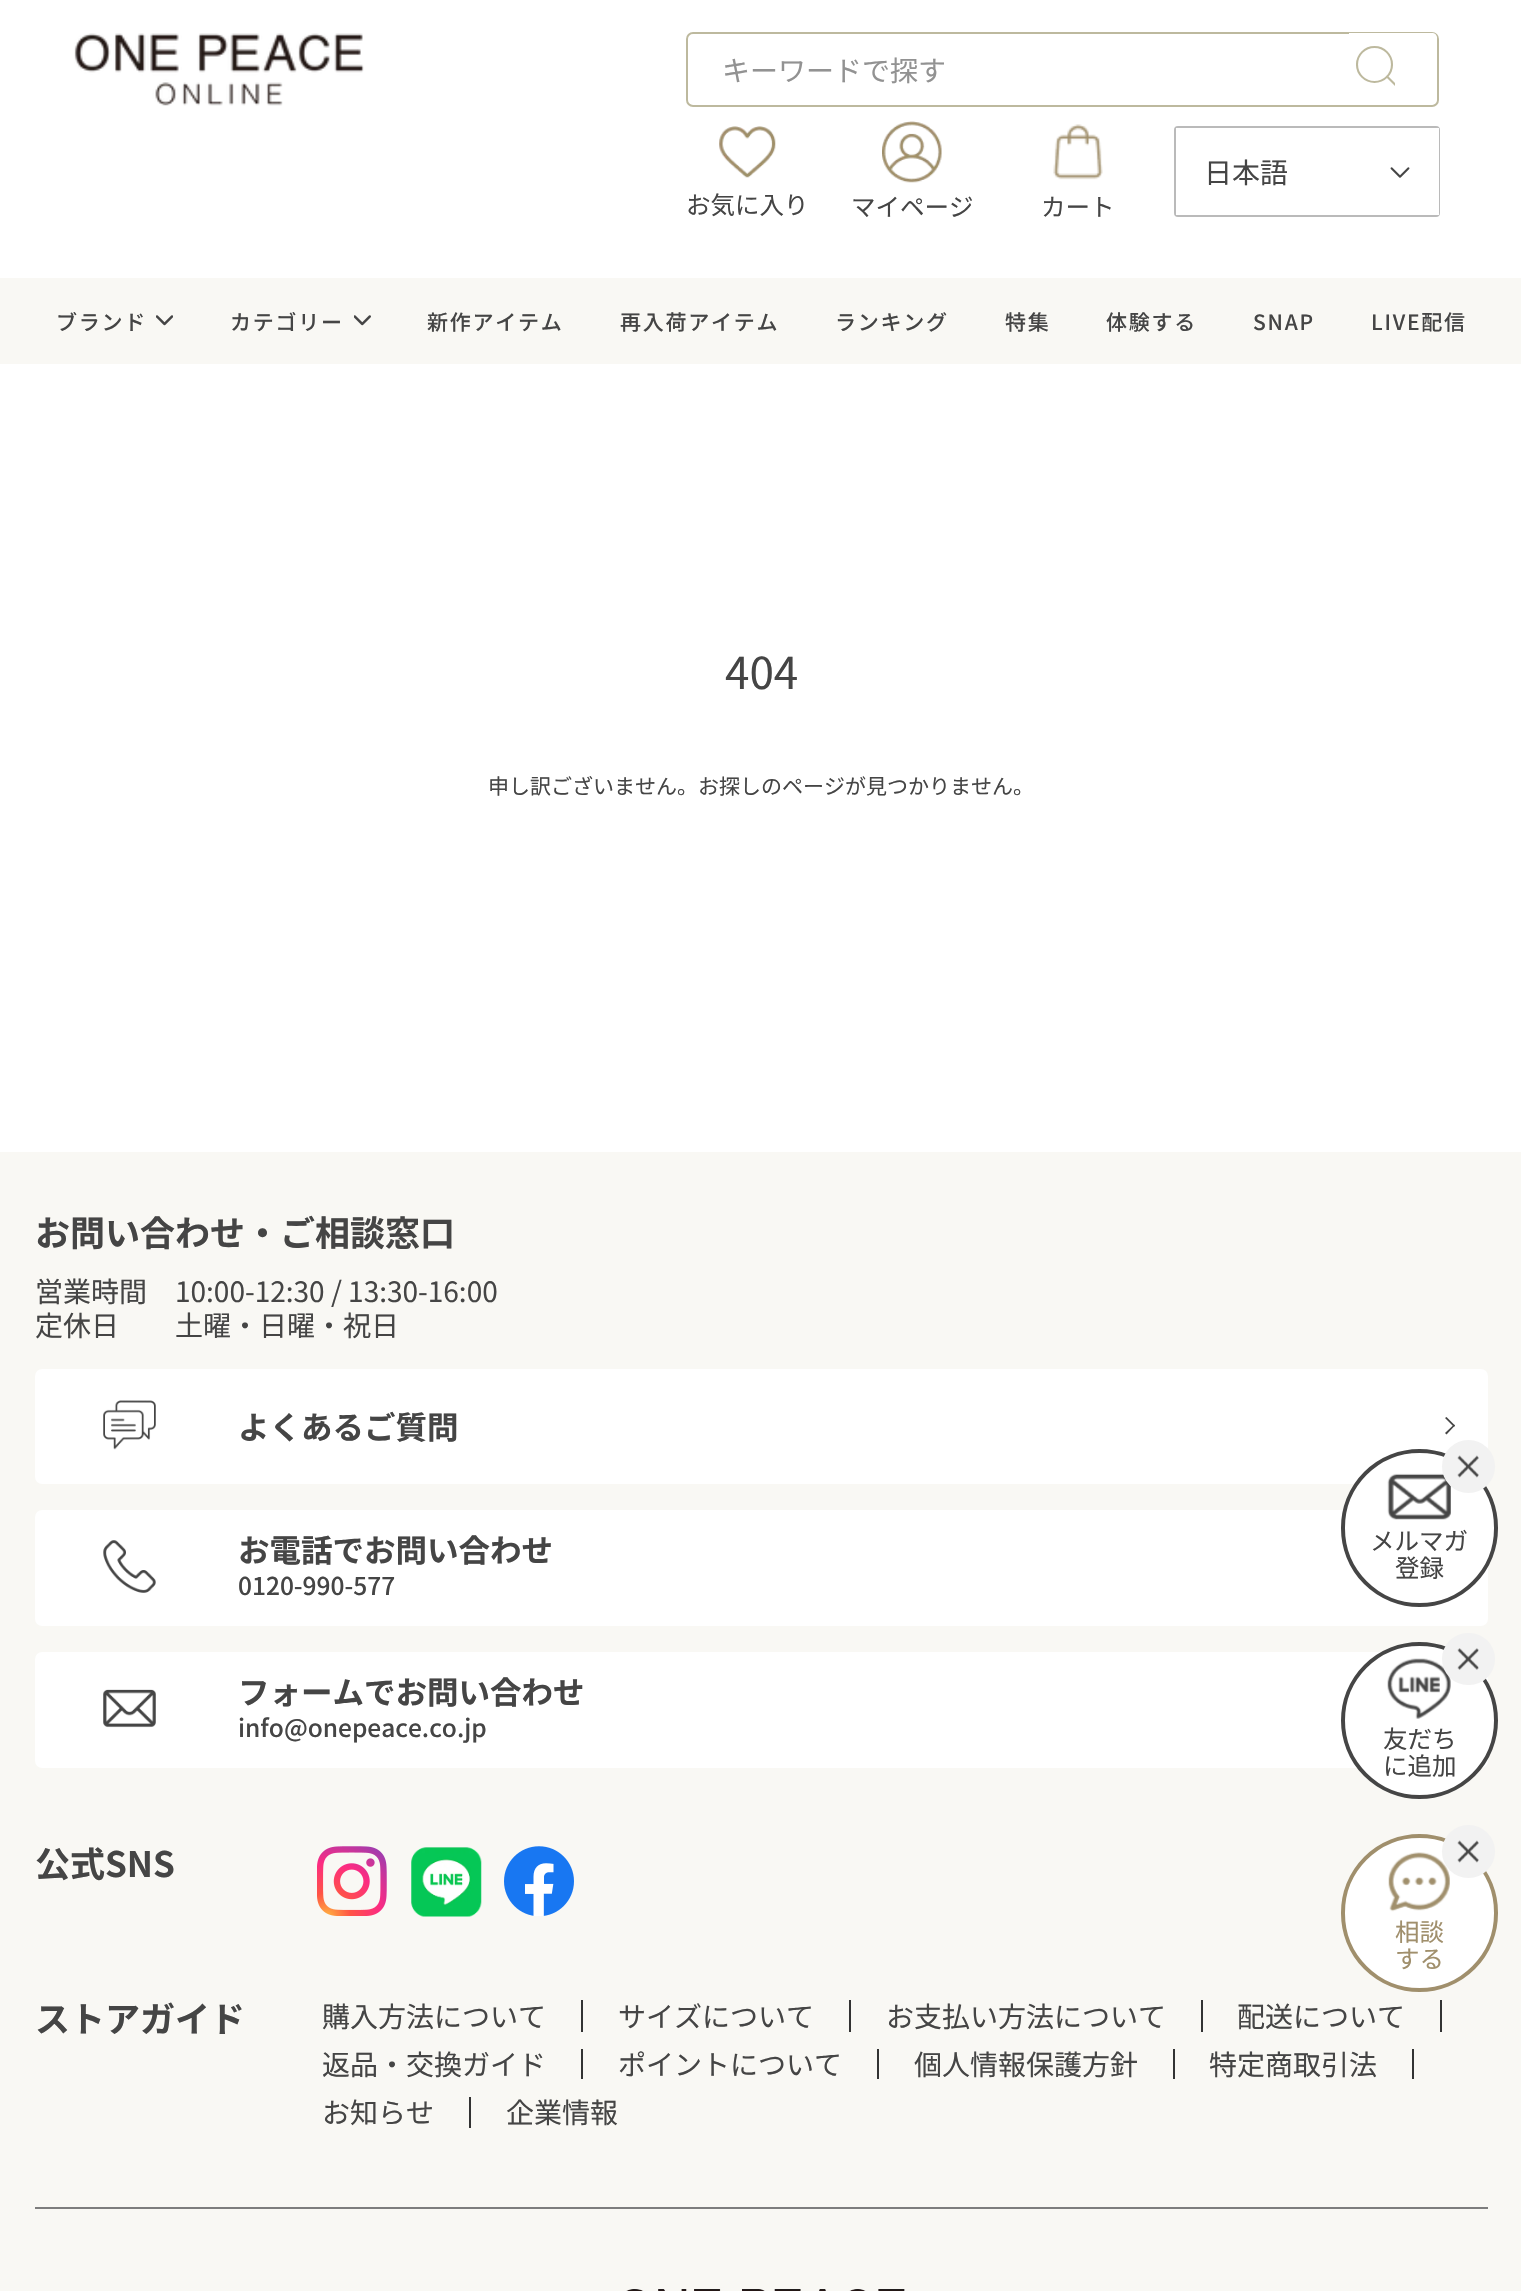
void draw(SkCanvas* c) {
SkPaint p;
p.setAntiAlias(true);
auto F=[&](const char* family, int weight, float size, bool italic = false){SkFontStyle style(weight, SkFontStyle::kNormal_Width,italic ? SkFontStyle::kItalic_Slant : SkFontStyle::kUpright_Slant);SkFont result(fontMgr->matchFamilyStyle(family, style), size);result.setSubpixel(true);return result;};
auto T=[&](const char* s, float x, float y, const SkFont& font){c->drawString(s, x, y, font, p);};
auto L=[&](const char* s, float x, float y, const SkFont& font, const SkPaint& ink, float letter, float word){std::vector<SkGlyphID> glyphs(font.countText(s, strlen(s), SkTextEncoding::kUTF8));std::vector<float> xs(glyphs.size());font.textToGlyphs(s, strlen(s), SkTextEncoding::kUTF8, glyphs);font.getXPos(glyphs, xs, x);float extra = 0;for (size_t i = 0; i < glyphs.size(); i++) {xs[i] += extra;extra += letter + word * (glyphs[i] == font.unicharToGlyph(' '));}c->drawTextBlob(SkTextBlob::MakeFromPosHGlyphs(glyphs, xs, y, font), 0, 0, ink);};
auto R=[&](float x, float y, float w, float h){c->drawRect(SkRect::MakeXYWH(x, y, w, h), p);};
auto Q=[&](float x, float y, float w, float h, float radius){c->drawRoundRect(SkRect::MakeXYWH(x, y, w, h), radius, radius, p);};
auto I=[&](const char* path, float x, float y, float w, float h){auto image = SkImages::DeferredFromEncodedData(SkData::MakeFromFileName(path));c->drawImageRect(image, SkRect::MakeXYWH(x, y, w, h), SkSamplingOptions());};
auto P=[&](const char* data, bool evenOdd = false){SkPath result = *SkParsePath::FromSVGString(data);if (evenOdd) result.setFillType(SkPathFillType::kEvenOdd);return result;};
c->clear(0xffffffff);
I("1.png",74,33,290,73);
p.setStroke(true);
p.setStrokeWidth(2);
p.setColor(0xffbdb99e);
c->drawRoundRect(SkRect::MakeXYWH(687,33,751,73),6,6,p);
auto f1 = F("Noto Sans JP",400,28);
p.setStroke(false);
p.setColor(0xff929292);
T("キーワードで探す",722,81,f1);
c->save();
c->clipPath(P("M692 33h741c2 0 4 2 4 4v64c0 2-2 4-4 4h-741c-2 0-4-2-4-4v-64c0-2 2-4 4-4z"),true);
p.setColor(0xffffffff);
c->drawPath(P("M1349 33h84c2 0 4 2 4 4v61c0 4-3 7-7 7h-81z"),p);
c->restore();
p.setStroke(true);
p.setStrokeWidth(2.1);
p.setColor(0xffbdb99e);
c->drawCircle(1374.5,64.5,17.5,p);
c->save();
c->clipRect(SkRect::MakeXYWH(1356,26,39,79));
c->drawPath(P("M1386.5 76l12.5 12.5"),p);
c->restore();
p.setStrokeWidth(2);
p.setColor(0xffbababa);
c->drawRoundRect(SkRect::MakeXYWH(1175,127,264,89),3,3,p);
p.setStroke(false);
p.setColor(0xffffffff);
R(1176,128,263,87);
p.setColor(0xff454545);
T("日本語",1204,183,f1);
I("2.png",1390,167,20,11);
I("3.png",719,126,57,52);
auto f2 = F("Noto Sans JP",400,24.5);
T("お気に入り",686,214,f2);
I("4.png",882,121,60,62);
T("マイページ",851,216,f2);
I("5.png",1053,124,50,56);
T("カート",1041,216,f2);
p.setColor(0xfff9f8f4);
R(0,278,1521,86);
auto f3 = F("Noto Sans JP",500,21);
p.setColor(0xff454545);
L("ブランド",56,330,f3,p,1.75,0);
I("6.png",156,315,17,11);
L("カテゴリー",230,330,f3,p,1.75,0);
I("7.png",354,315,17,11);
L("新作アイテム",427,330,f3,p,1.75,0);
L("再入荷アイテム",620,330,f3,p,1.75,0);
L("ランキング",835,330,f3,p,1.75,0);
L("特集",1005,330,f3,p,1.75,0);
L("体験する",1106,330,f3,p,1.75,0);
L("SNAP",1253,330,f3,p,1.75,0);
L("LIVE配信",1371,330,f3,p,1.75,0);
auto f4 = F("Noto Sans JP",400,44);
T("404",725,689,f4);
auto f5 = F("Noto Sans JP",400,21);
T("申し訳ございません。お探しのページが見つかりません。",488,794,f5);
p.setColor(0xfff9f8f4);
R(0,1152,1521,1139);
auto f6 = F("Noto Sans JP",700,35);
p.setColor(0xff454545);
T("お問い合わせ・ご相談窓口",35,1246,f6);
T("営業時間　10:00-12:30 / 13:30-16:00",35,1302,f1);
T("定休日　　土曜・日曜・祝日",35,1336,f1);
p.setColor(0xffffffff);
Q(35,1369,1453,115,7);
I("8.png",103,1400,53,50);
auto f7 = F("Noto Sans JP",700,31.5);
p.setColor(0xff454545);
T("よくあるご質問",238,1439,f7);
c->drawPath(P("M1446.5 1417l8.5 8.5l-1 1.5l-9-9z"),p);
c->drawPath(P("M1454 1424.5l1 1l-8.5 9l-1.5-1.5z"),p);
p.setColor(0xffffffff);
Q(35,1510,1453,116,7);
I("9.png",103,1540,53,53);
p.setColor(0xff454545);
T("お電話でお問い合わせ",238,1562,f7);
auto f8 = F("Noto Sans JP",500,24.5);
T("0120-990-577",238,1595,f8);
p.setColor(0xffffffff);
Q(35,1652,1453,116,7);
I("10.png",103,1689,53,39);
p.setColor(0xff454545);
T("フォームでお問い合わせ",238,1704,f7);
T("info@onepeace.co.jp",238,1737,f8);
T("公式SNS",35,1877,f6);
I("11.png",317,1846,70,70);
I("12.png",411,1847,71,70);
I("13.png",504,1846,70,70);
T("ストアガイド",35,2032,f6);
p.setColor(0xff333333);
R(581,2000,2,32);
p.setColor(0xff454545);
T("購入方法について",322,2027,f1);
p.setColor(0xff333333);
R(849,2000,2,32);
p.setColor(0xff454545);
T("サイズについて",618,2027,f1);
p.setColor(0xff333333);
R(1201,2000,2,32);
p.setColor(0xff454545);
T("お支払い方法について",886,2027,f1);
p.setColor(0xff333333);
R(1440,2000,2,32);
p.setColor(0xff454545);
T("配送について",1237,2027,f1);
p.setColor(0xff333333);
R(581,2049,2,30);
p.setColor(0xff454545);
T("返品・交換ガイド",322,2075,f1);
p.setColor(0xff333333);
R(877,2049,2,30);
p.setColor(0xff454545);
T("ポイントについて",618,2075,f1);
p.setColor(0xff333333);
R(1173,2049,2,30);
p.setColor(0xff454545);
T("個人情報保護方針",914,2075,f1);
p.setColor(0xff333333);
R(1412,2049,2,30);
p.setColor(0xff454545);
T("特定商取引法",1209,2075,f1);
p.setColor(0xff333333);
R(469,2097,2,31);
p.setColor(0xff454545);
T("お知らせ",322,2123,f1);
T("企業情報",506,2123,f1);
p.setColor(0xff7d7d7d);
R(35,2207,1453,2);
I("14.png",626,2289,279,2);
p.setColor(0xffffffff);
c->drawRoundRect(SkRect::MakeXYWH(1343,1451,153,154),76.5,76.5,p);
p.setStroke(true);
p.setStrokeWidth(4);
p.setColor(0xff454545);
c->drawRoundRect(SkRect::MakeXYWH(1343,1451,153,154),76.5,76.5,p);
I("15.png",1387,1473,64,47);
p.setStroke(false);
p.setColor(0xfff2f2f2);
c->drawCircle(1468.5,1466.5,26.5,p);
I("16.png",1457,1455,22,23);
p.setColor(0xff454545);
T("メルマガ",1370,1550,f2);
T("登録",1395,1577,f2);
p.setColor(0xffffffff);
c->drawCircle(1419.5,1720.5,76.5,p);
p.setStroke(true);
p.setColor(0xff454545);
c->drawCircle(1419.5,1720.5,76.5,p);
I("17.png",1387,1658,64,61);
p.setStroke(false);
p.setColor(0xfff2f2f2);
Q(1442,1633,53,52,26);
I("18.png",1457,1648,22,22);
p.setColor(0xff454545);
T("友だち",1383,1748,f2);
T("に追加",1383,1775,f2);
p.setColor(0xffffffff);
c->drawRoundRect(SkRect::MakeXYWH(1343,1836,153,154),76.5,76.5,p);
p.setStroke(true);
p.setColor(0xffa08f6c);
c->drawRoundRect(SkRect::MakeXYWH(1343,1836,153,154),76.5,76.5,p);
I("19.png",1388,1852,62,60);
p.setStroke(false);
p.setColor(0xfff2f2f2);
c->drawCircle(1468.5,1851.5,26.5,p);
I("16.png",1457,1840,22,23);
p.setColor(0xffa08f6c);
T("相談",1395,1941,f2);
T("する",1395,1968,f2);
}
